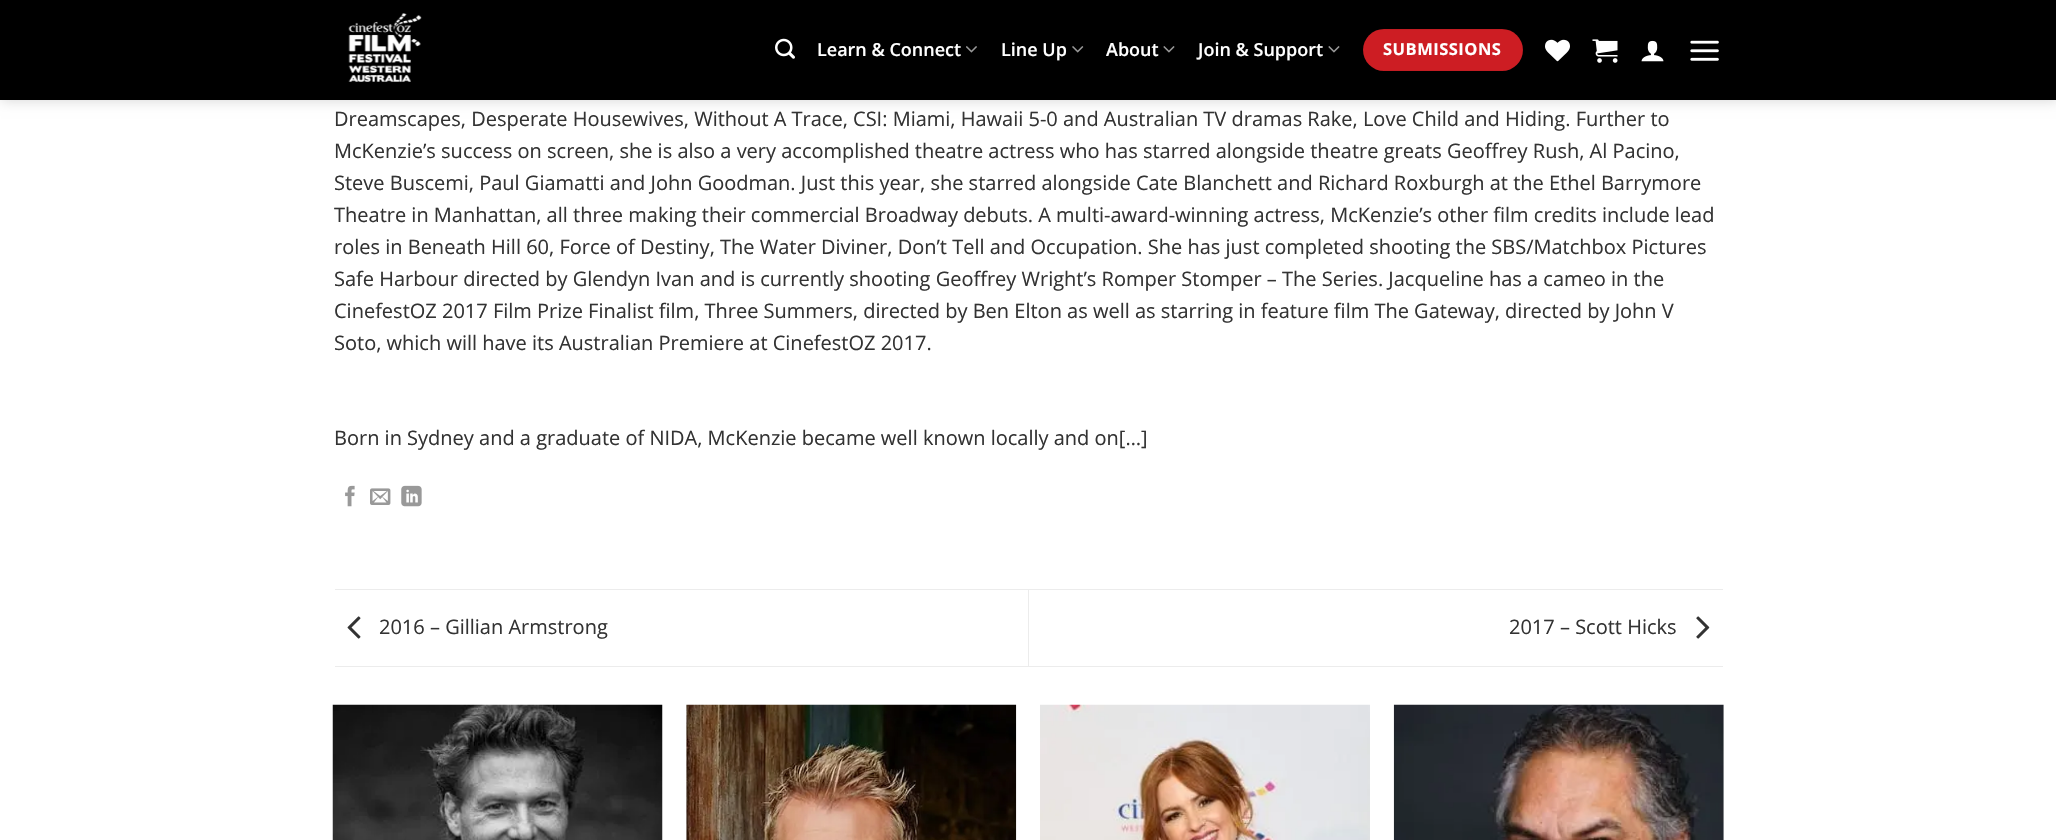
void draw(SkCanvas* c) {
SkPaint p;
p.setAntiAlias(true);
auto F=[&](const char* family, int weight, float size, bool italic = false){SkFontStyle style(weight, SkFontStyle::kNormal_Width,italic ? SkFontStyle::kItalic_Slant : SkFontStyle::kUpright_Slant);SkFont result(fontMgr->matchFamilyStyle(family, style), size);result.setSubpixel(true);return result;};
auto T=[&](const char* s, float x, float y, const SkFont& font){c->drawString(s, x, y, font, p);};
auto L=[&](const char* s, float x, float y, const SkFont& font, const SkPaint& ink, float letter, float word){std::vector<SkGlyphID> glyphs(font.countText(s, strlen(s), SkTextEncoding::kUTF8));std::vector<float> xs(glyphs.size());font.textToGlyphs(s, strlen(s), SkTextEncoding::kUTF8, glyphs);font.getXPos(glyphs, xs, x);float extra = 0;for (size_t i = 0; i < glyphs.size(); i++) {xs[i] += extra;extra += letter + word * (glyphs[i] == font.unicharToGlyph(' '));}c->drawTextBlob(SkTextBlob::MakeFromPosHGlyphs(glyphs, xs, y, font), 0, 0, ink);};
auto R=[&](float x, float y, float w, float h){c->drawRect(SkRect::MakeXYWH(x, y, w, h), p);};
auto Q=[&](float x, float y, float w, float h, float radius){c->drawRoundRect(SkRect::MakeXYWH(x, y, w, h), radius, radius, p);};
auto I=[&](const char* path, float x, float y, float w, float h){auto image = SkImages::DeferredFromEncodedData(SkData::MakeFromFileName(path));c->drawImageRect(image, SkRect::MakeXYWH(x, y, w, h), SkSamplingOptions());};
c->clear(0xffffffff);
p.setColor(0x26000000);
p.setMaskFilter(SkMaskFilter::MakeBlur(kNormal_SkBlurStyle, 6));
c->drawRect(SkRect::MakeXYWH(1,1,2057,100),p);
p.setMaskFilter(nullptr);
p.setColor(0xff000000);
R(0,0,2056,100);
I("1.png",348,13,74,69);
I("2.png",775,38,20,21);
auto f1 = F("Open Sans",600,18);
p.setColor(0xffffffff);
T("Learn & Connect",817,56,f1);
I("3.png",966,46,11,7);
T("Line Up",1001,56,f1);
I("4.png",1072,46,12,7);
T("About",1106,56,f1);
I("5.png",1163,46,12,7);
T("Join & Support",1198,56,f1);
I("5.png",1328,46,12,7);
p.setColor(0xffcd1d23);
Q(1363,29,160,42,21);
p.setStroke(true);
p.setStrokeWidth(1);
p.setColor(0x0d000000);
c->drawRect(SkRect::MakeXYWH(1363.5,29.5,159,41),p);
auto f2 = F("Open Sans",700,16.5);
p.setStroke(false);
p.setColor(0xffffffff);
L("SUBMISSIONS",1383,55,f2,p,.5,0);
I("6.png",1545,39,25,23);
I("7.png",1592,39,26,24);
I("8.png",1641,40,23,22);
I("9.png",1690,40,29,21);
auto f3 = F("Open Sans",400,20);
p.setColor(0xff333333);
T("Dreamscapes, Desperate Housewives, Without A Trace, CSI: Miami, Hawaii 5-0 and Australian TV dramas Rake, Love Child and Hiding. Further to",334,126,f3);
T("McKenzie’s success on screen, she is also a very accomplished theatre actress who has starred alongside theatre greats Geoffrey Rush, Al Pacino,",334,158,f3);
T("Steve Buscemi, Paul Giamatti and John Goodman. Just this year, she starred alongside Cate Blanchett and Richard Roxburgh at the Ethel Barrymore",334,190,f3);
T("Theatre in Manhattan, all three making their commercial Broadway debuts. A multi-award-winning actress, McKenzie’s other film credits include lead",334,222,f3);
T("roles in Beneath Hill 60, Force of Destiny, The Water Diviner, Don’t Tell and Occupation. She has just completed shooting the SBS/Matchbox Pictures",334,254,f3);
T("Safe Harbour directed by Glendyn Ivan and is currently shooting Geoffrey Wright’s Romper Stomper – The Series. Jacqueline has a cameo in the",334,286,f3);
T("CinefestOZ 2017 Film Prize Finalist film, Three Summers, directed by Ben Elton as well as starring in feature film The Gateway, directed by John V",334,318,f3);
T("Soto, which will have its Australian Premiere at CinefestOZ 2017.",334,350,f3);
T("Born in Sydney and a graduate of NIDA, McKenzie became well known locally and on[…]",334,445,f3);
I("10.png",345,485,10,22);
I("11.png",370,488,21,17);
I("12.png",401,485,21,22);
p.setColor(0xffececec);
R(335,589,1388,1);
R(335,666,1388,1);
I("13.png",347,616,14,23);
p.setColor(0xff333333);
T("2016 – Gillian Armstrong",379,634,f3);
p.setColor(0xffececec);
R(1028,590,1,76);
p.setColor(0xff333333);
T("2017 – Scott Hicks",1509,634,f3);
I("14.png",1696,616,14,23);
I("15.png",332,704,331,136);
I("16.png",686,704,331,136);
I("17.png",1040,704,330,136);
I("18.png",1393,704,331,136);
}
